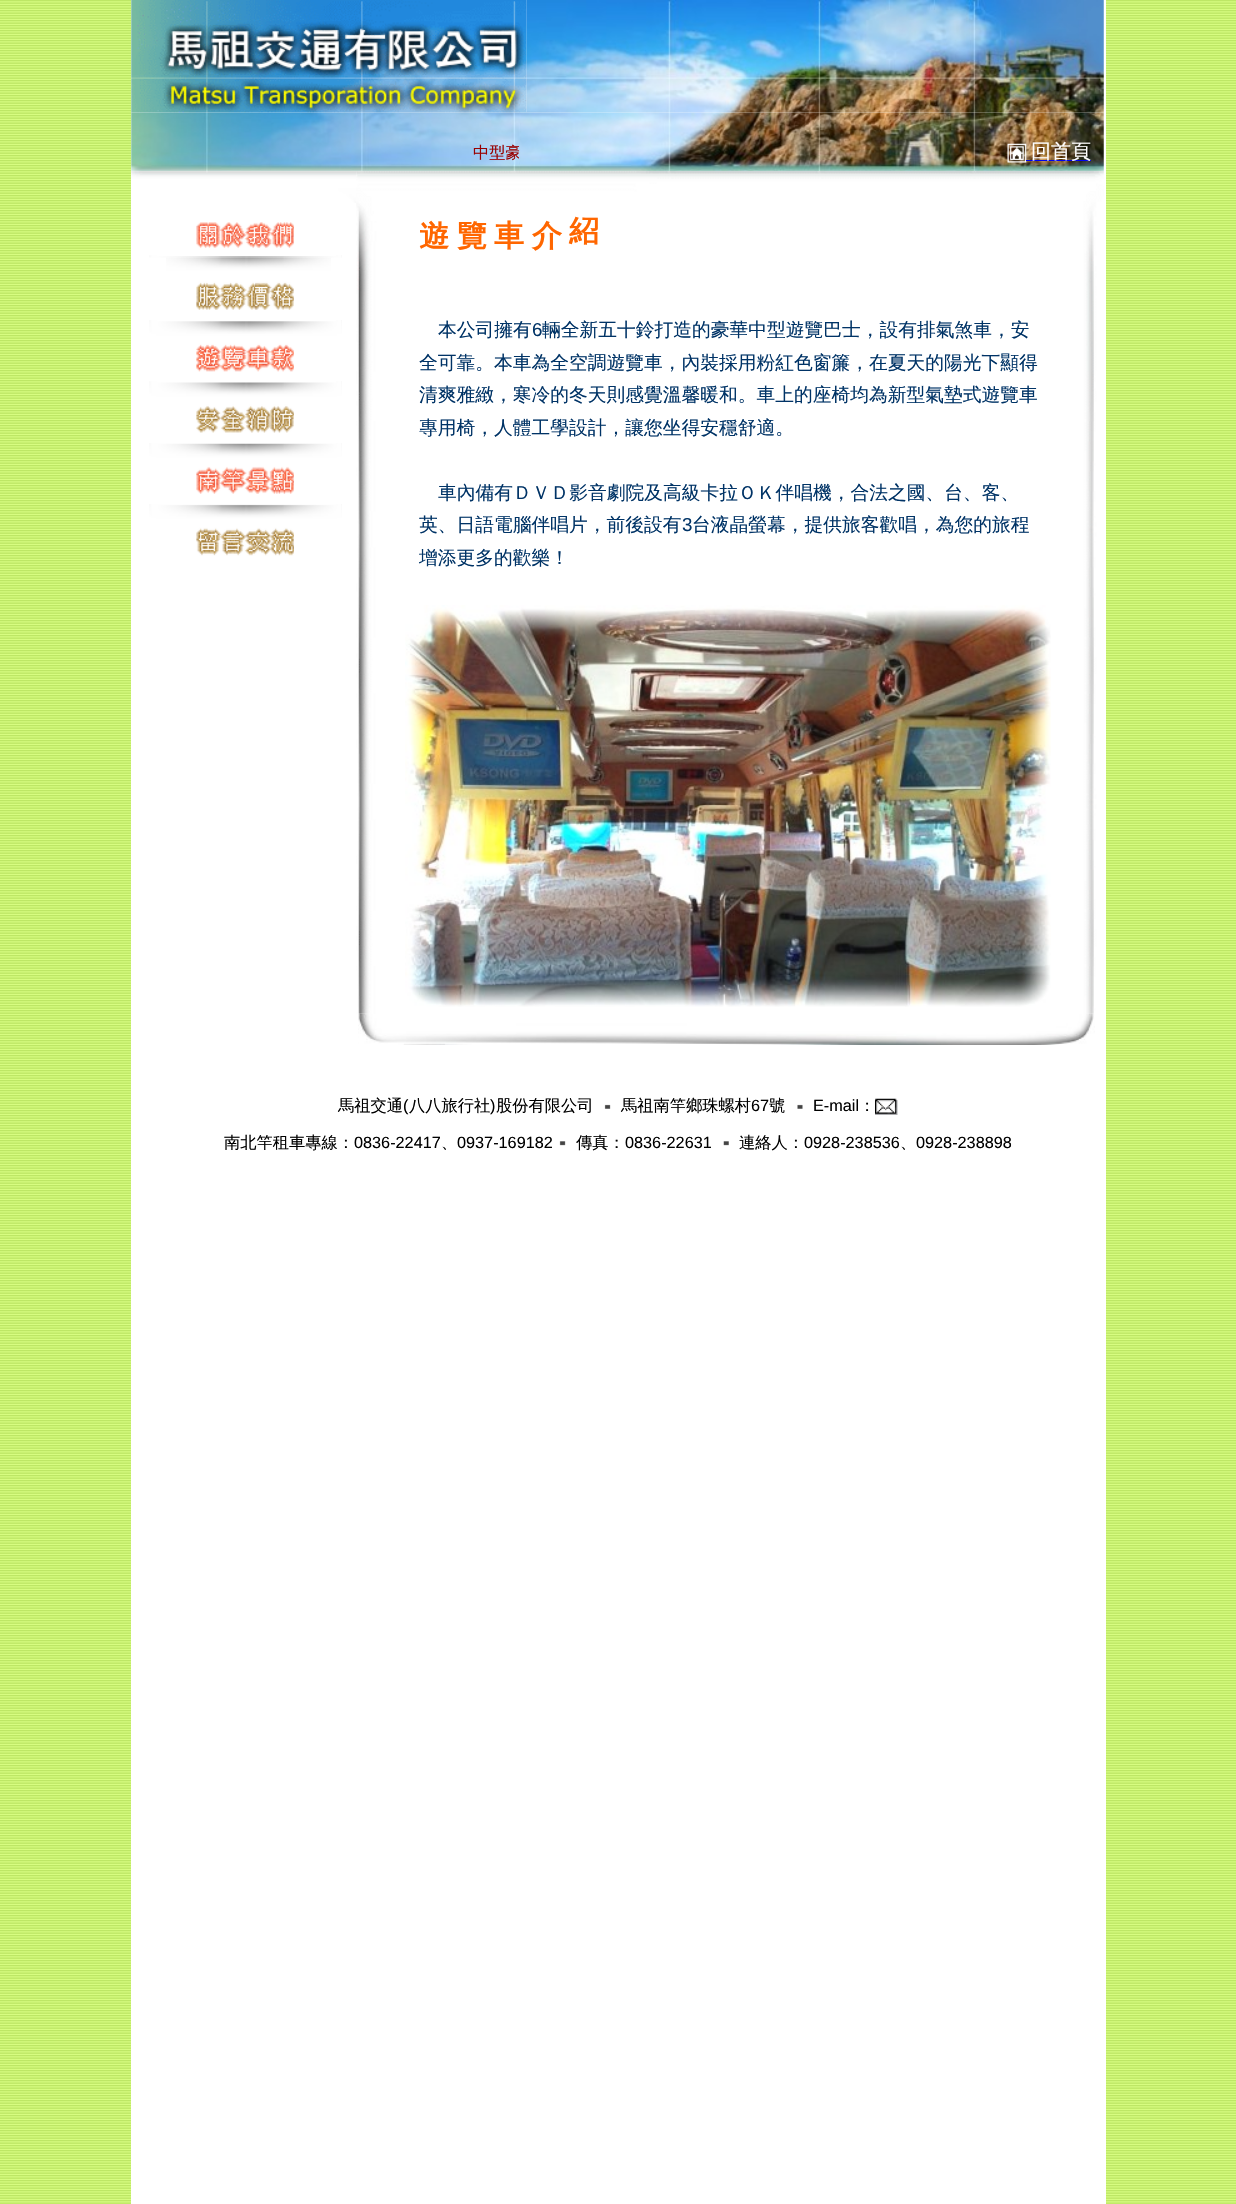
void draw(SkCanvas* c) {
SkPaint p;
p.setAntiAlias(true);
auto F=[&](const char* family, int weight, float size, bool italic = false){SkFontStyle style(weight, SkFontStyle::kNormal_Width,italic ? SkFontStyle::kItalic_Slant : SkFontStyle::kUpright_Slant);SkFont result(fontMgr->matchFamilyStyle(family, style), size);result.setSubpixel(true);return result;};
auto T=[&](const char* s, float x, float y, const SkFont& font){c->drawString(s, x, y, font, p);};
auto R=[&](float x, float y, float w, float h){c->drawRect(SkRect::MakeXYWH(x, y, w, h), p);};
auto I=[&](const char* path, float x, float y, float w, float h){auto image = SkImages::DeferredFromEncodedData(SkData::MakeFromFileName(path));c->drawImageRect(image, SkRect::MakeXYWH(x, y, w, h), SkSamplingOptions());};
c->clear(0xffffffff);
I("1.png",0,0,1236,2204);
p.setColor(0xffffffff);
R(131,0,975,2204);
I("2.png",131,0,396,75);
I("5.png",131,112,973,60);
I("3.png",526,0,578,113);
I("4.png",131,75,396,38);
c->save();
c->clipRect(SkRect::MakeXYWH(169,141,350,23));
auto f1 = F("WenQuanYi Zen Hei",500,16.25);
p.setColor(0xff990000);
T("中型豪",473,158,f1);
c->restore();
I("6.png",1007,143,20,20);
p.setColor(0xff0000ee);
R(1026,160,65,1);
auto f2 = F("WenQuanYi Zen Hei",500,20);
p.setColor(0xffffffff);
T("回首頁",1031,158,f2);
I("7.png",131,171,226,32);
I("8.png",149,222,193,36);
I("9.png",166,257,165,53);
I("10.png",149,320,193,52);
I("11.png",149,381,193,52);
I("12.png",149,443,193,51);
I("13.png",149,504,193,52);
I("14.png",356,171,748,843);
auto f3 = F("WenQuanYi Zen Hei",700,30);
p.setColor(0xffff6600);
T("遊",419,246,f3);
T("覽",457,246,f3);
T("車",494,246,f3);
T("介",532,246,f3);
T("紹",569,241,f3);
auto f4 = F("WenQuanYi Zen Hei",500,18.75);
p.setColor(0xff003366);
T("本公司擁有",438,336,f4);
auto f5 = F("Liberation Sans",400,18.75);
T("6",532,336,f5);
T("輛全新五十鈴打造的豪華中型遊覽巴士，設有排氣煞車，安",542,336,f4);
T("全可靠。本車為全空調遊覽車，內裝採用粉紅色窗簾，在夏天的陽光下顯得",419,369,f4);
T("清爽雅緻，寒冷的冬天則感覺溫馨暖和。車上的座椅均為新型氣墊式遊覽車",419,401,f4);
T("專用椅，人體工學設計，讓您坐得安穩舒適。",419,434,f4);
T("車內備有ＤＶＤ影音劇院及高級卡拉ＯＫ伴唱機，合法之國、台、客、",438,499,f4);
T("英、日語電腦伴唱片，前後設有",419,531,f4);
T("3",682,531,f5);
T("台液晶螢幕，提供旅客歡唱，為您的旅程",692,531,f4);
T("增添更多的歡樂！",419,564,f4);
I("15.png",405,605,646,402);
I("16.png",358,1013,737,32);
p.setColor(0xff000000);
T("馬祖交通",338,1111,f1);
auto f6 = F("Liberation Sans",400,16.25);
T("(",403,1111,f6);
T("八八旅行社",409,1111,f1);
T(")",490,1111,f6);
T("股份有限公司",496,1111,f1);
I("17.png",604,1104,7,5);
T("馬祖南竿鄉珠螺村",621,1111,f1);
T("67",751,1111,f6);
T("號",769,1111,f1);
I("18.png",797,1104,6,5);
T("E-mail",813,1111,f6);
T("：",859,1111,f1);
I("19.png",875,1098,23,17);
T("南北竿租車專線：",224,1148,f1);
T("0836-22417",354,1148,f6);
T("0937-169182",457,1148,f6);
I("20.png",559,1141,7,5);
T("傳真：",576,1148,f1);
T("0836-22631",625,1148,f6);
I("21.png",723,1141,6,5);
T("連絡人：",739,1148,f1);
T("0928-238536",804,1148,f6);
T("0928-238898",916,1148,f6);
T("、",441,1148,f1);
T("、",900,1148,f1);
}
